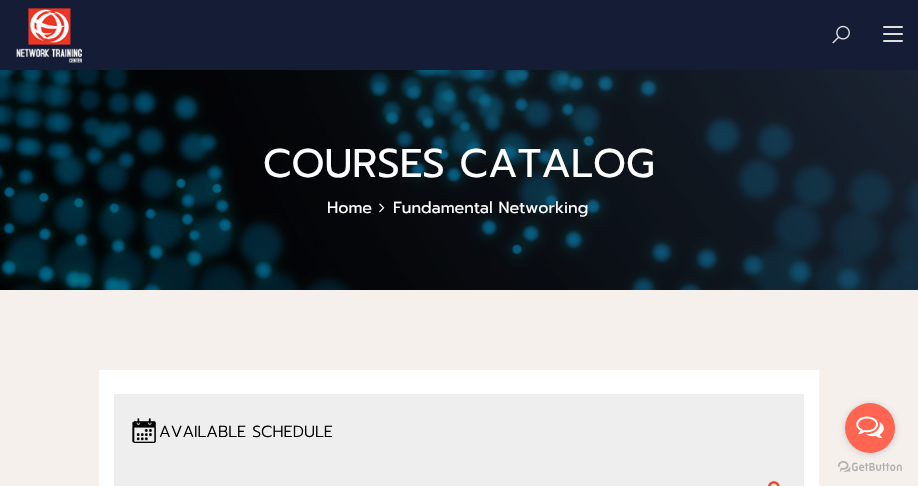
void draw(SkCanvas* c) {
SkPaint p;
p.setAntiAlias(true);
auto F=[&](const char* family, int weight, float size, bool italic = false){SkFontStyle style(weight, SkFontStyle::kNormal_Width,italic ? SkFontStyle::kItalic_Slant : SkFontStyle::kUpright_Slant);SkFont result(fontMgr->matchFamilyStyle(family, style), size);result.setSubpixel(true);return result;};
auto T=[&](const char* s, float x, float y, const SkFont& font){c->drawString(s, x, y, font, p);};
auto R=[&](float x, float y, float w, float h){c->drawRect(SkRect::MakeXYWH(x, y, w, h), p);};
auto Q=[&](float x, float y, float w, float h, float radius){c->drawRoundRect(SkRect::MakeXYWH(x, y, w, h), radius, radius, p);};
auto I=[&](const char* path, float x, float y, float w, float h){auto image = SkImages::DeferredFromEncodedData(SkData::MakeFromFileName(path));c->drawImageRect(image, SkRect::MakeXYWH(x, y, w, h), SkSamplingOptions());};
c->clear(0xfff5f0ec);
p.setColor(0xff141c36);
R(0,0,918,70);
I("1.png",16,8,66,55);
I("2.png",832,25,18,19);
p.setColor(0xffdfdfdf);
Q(883,26,20,2,1);
Q(883,33,20,2,1);
Q(883,40,20,2,1);
I("3.png",0,70,918,220);
auto f1 = F("Prompt",400,40);
p.setColor(0xffffffff);
T("COURSES CATALOG",263,177,f1);
auto f2 = F("Prompt",400,16);
T("Home",327,213,f2);
I("4.png",379,203,6,10);
T("Fundamental Networking",393,213,f2);
R(99,370,720,116);
p.setColor(0xffeeeeee);
R(114,394,690,92);
I("5.png",132,418,24,25);
auto f3 = F("Prompt",300,16);
p.setColor(0xff000000);
T("AVAILABLE SCHEDULE",159,437,f3);
I("6.png",768,480,13,6);
I("8.png",838,461,64,11);
p.setColor(0x66888888);
p.setMaskFilter(SkMaskFilter::MakeBlur(kNormal_SkBlurStyle, 3.5));
c->drawRoundRect(SkRect::MakeXYWH(845,404,50,50),25,25,p);
p.setMaskFilter(nullptr);
p.setColor(0xffff6550);
c->drawCircle(870,428,25,p);
I("7.png",856,416,28,23);
}
